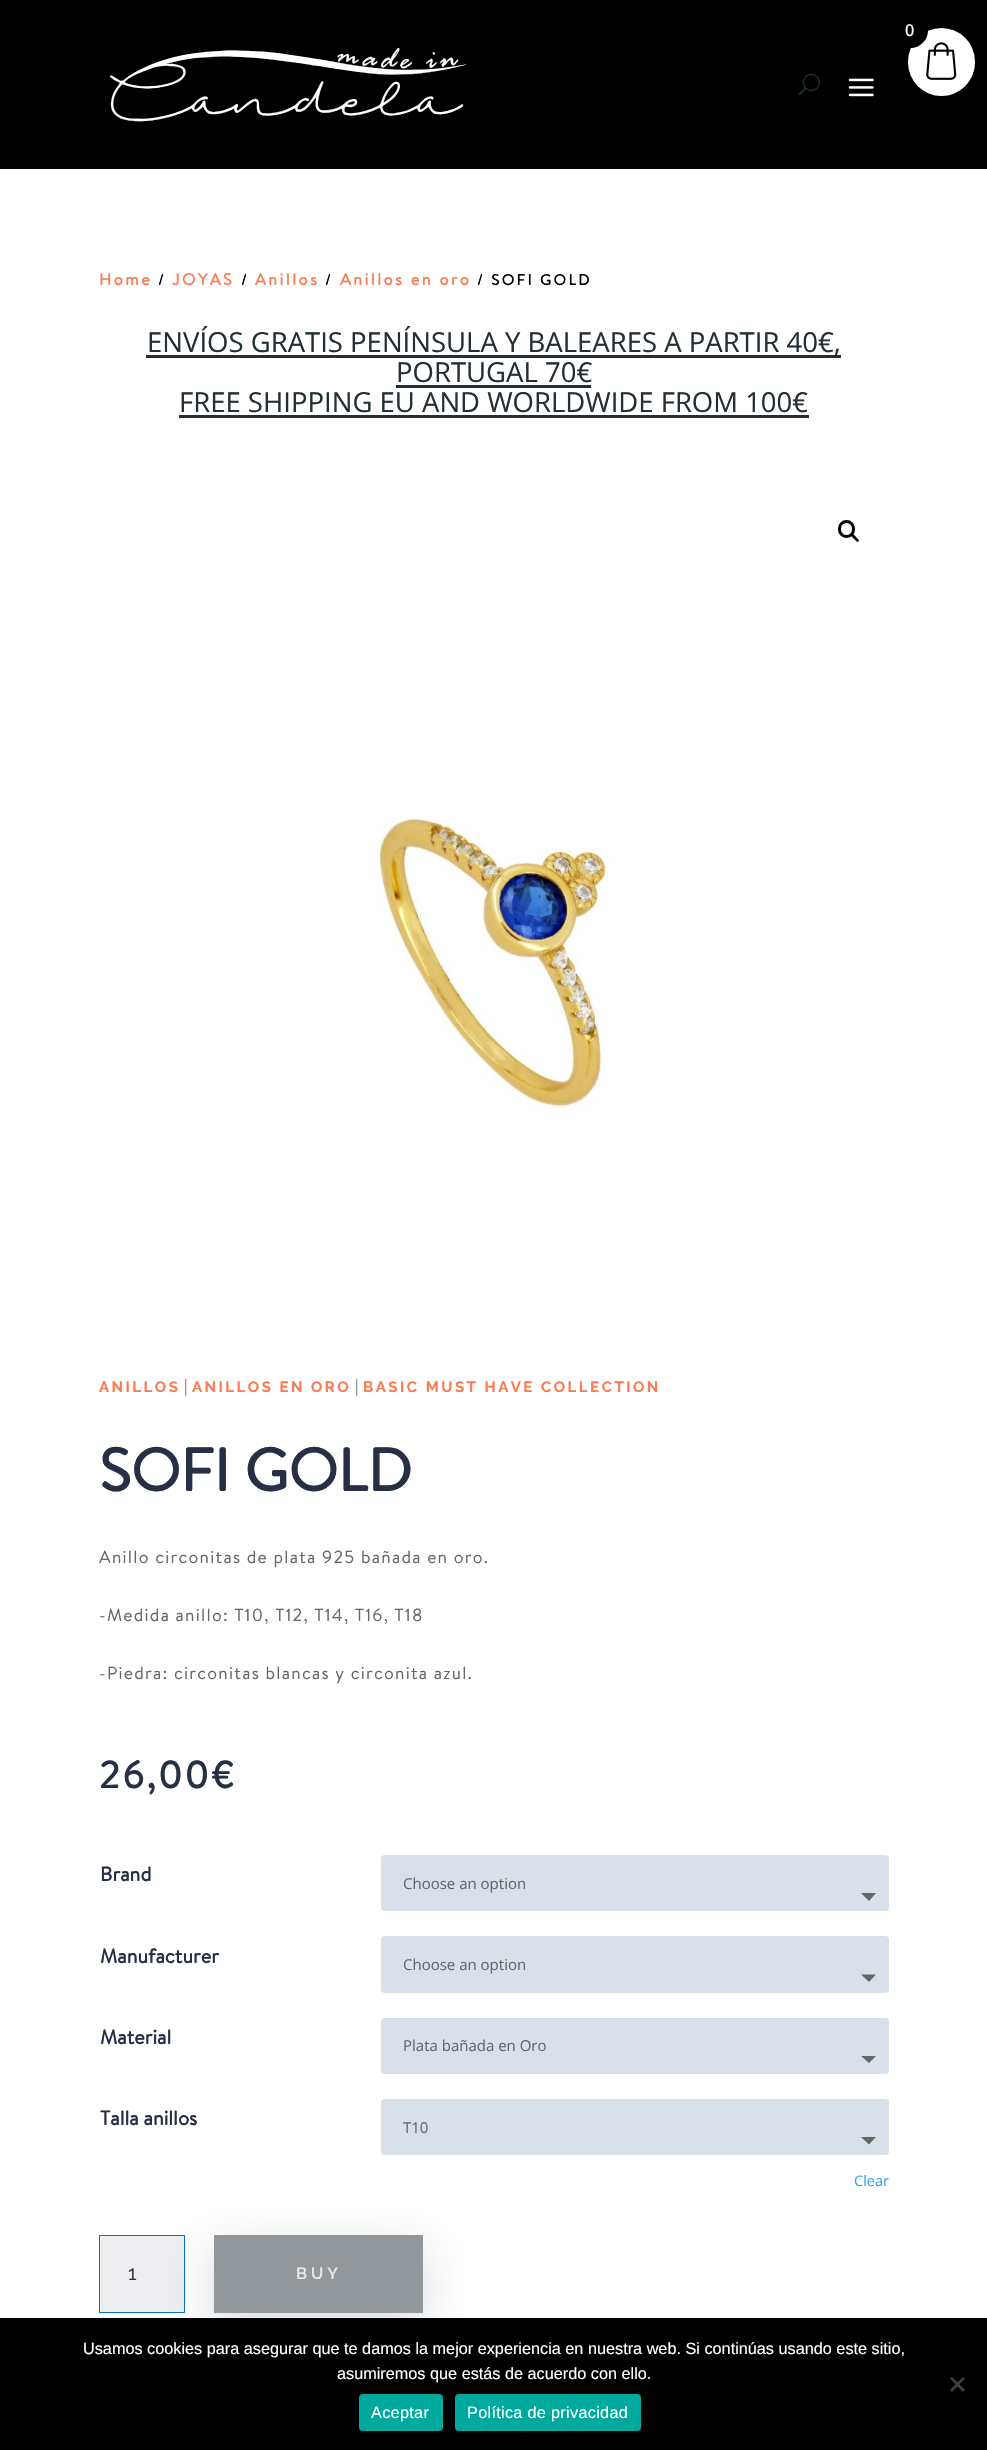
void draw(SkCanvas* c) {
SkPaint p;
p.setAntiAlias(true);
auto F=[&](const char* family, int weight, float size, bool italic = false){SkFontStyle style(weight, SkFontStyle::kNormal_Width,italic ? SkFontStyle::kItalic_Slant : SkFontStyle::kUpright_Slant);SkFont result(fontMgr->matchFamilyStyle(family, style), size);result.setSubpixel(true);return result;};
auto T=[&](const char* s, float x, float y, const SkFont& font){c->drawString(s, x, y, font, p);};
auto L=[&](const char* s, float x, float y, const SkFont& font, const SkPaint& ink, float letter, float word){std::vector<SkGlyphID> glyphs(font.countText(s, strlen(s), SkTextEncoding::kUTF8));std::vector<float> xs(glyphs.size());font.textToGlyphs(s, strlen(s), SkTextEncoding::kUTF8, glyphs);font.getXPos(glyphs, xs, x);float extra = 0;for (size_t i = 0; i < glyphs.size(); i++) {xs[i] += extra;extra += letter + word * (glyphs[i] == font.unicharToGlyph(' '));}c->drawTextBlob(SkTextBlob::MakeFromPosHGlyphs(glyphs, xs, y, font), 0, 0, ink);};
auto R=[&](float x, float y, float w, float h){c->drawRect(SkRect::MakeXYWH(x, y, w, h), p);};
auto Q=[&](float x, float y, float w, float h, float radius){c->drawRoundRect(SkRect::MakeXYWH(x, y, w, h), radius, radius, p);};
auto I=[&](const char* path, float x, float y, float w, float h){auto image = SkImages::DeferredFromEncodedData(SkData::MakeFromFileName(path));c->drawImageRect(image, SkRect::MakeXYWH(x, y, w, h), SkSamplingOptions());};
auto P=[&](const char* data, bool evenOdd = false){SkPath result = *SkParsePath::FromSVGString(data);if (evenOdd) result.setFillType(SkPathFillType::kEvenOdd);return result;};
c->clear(0xffffffff);
p.setColor(0xff000000);
R(0,0,987,169);
p.setColor(0xffffffff);
Q(908,28,67,68,33.5);
p.setColor(0xff000000);
c->drawCircle(910.5,30.5,17.5,p);
auto f1 = F("Open Sans",500,16.25);
p.setColor(0xffffffff);
T("0",905,36,f1);
I("1.png",926,42,31,38);
I("2.png",109,48,358,74);
I("3.png",798,73,22,22);
I("4.png",848,78,26,19);
auto f2 = F("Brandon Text",700,16.25);
p.setColor(0xfffc7b52);
L("Home",99,285,f2,p,2.5,0);
auto f3 = F("Brandon Text",700,15);
p.setColor(0xff000000);
L("/",158,285,f3,p,2.5,0);
p.setColor(0xfffc7b52);
L("JOYAS",172,285,f2,p,2.5,0);
p.setColor(0xff000000);
L("/",241,285,f3,p,2.5,0);
p.setColor(0xfffc7b52);
L("Anillos",255,285,f2,p,2.5,0);
p.setColor(0xff000000);
L("/",325,285,f3,p,2.5,0);
p.setColor(0xfffc7b52);
L("Anillos en oro",340,285,f2,p,2.5,0);
p.setColor(0xff000000);
L("/ SOFI GOLD",477,285,f3,p,2.5,0);
p.setColor(0xff232f34);
R(146,355,695,3);
auto f4 = F("Open Sans",400,27.5);
T("ENVÍOS GRATIS PENÍNSULA Y BALEARES A PARTIR 40€,",147,352,f4);
T("PORTUGAL 70€",396,382,f4);
R(396,385,195,3);
T("FREE SHIPPING EU AND WORLDWIDE FROM 100€",179,412,f4);
R(179,415,630,3);
p.setStroke(true);
p.setStrokeWidth(3);
p.setColor(0xff000000);
c->drawRoundRect(SkRect::MakeXYWH(839.5,521.5,14,15),7,7,p);
p.setStroke(false);
c->drawPath(P("M851.5 534.5c1.5-1.5 3.5 1.5 4.5 2.5c.5 1 4 3 2.5 4.5c-1.5 1.5-3.5-2-4.5-2.5c-.5-1-4-3-2.5-4.5z"),p);
I("5.png",377,816,237,295);
auto f5 = F("Raleway",700,15);
p.setColor(0xfffc7b52);
L("ANILLOS",99,1392,f5,p,2.5,0);
auto f6 = F("Brandon Text",400,17.5);
p.setColor(0xff666666);
T("|",184,1392,f6);
p.setColor(0xfffc7b52);
L("ANILLOS EN ORO",192,1392,f5,p,2.5,0);
p.setColor(0xff666666);
T("|",355,1392,f6);
p.setColor(0xfffc7b52);
L("BASIC MUST HAVE COLLECTION",363,1392,f5,p,2.5,0);
auto f7 = F("Brandon Text",700,60);
p.setColor(0xff262f44);
T("SOFI GOLD",99,1491,f7);
p.setColor(0xff666666);
L("Anillo circonitas de plata 925 bañada en oro.",99,1563,f6,p,1.25,0);
L("-Medida anillo: T10, T12, T14, T16, T18",99,1621,f6,p,1.25,0);
L("-Piedra: circonitas blancas y circonita azul.",99,1679,f6,p,1.25,0);
auto f8 = F("Brandon Text",700,37.5);
p.setColor(0xff262f44);
L("26,00€",99,1788,f8,p,2.5,0);
auto f9 = F("Brandon Text",700,20);
T("Brand",100,1881,f9);
p.setColor(0xffd9e0ea);
Q(381,1855,508,56,4);
auto f10 = F("Open Sans",400,15);
p.setColor(0xff666666);
T("Choose an option",403,1889,f10);
c->drawPath(P("M861 1893h15l-7 8z"),p);
p.setColor(0xff262f44);
T("Manufacturer",100,1963,f9);
p.setColor(0xffd9e0ea);
Q(381,1936,508,57,4);
p.setColor(0xff666666);
T("Choose an option",403,1970,f10);
c->drawPath(P("M861 1974.5h15l-7 7.5z"),p);
p.setColor(0xff262f44);
T("Material",100,2044,f9);
p.setColor(0xffd9e0ea);
Q(381,2018,508,56,4);
p.setColor(0xff666666);
T("Plata bañada en Oro",403,2051,f10);
c->drawPath(P("M861 2056h15l-7 7z"),p);
p.setColor(0xff262f44);
T("Talla anillos",100,2125,f9);
p.setColor(0xffd9e0ea);
Q(381,2099,508,56,4);
p.setColor(0xff666666);
T("T10",403,2133,f10);
c->drawPath(P("M861 2137h15l-7 7.5z"),p);
auto f11 = F("Open Sans",400,14.5);
p.setColor(0xff2ea3f2);
T("Clear",854,2186,f11);
p.setColor(0xffeeeef0);
c->drawRect(SkRect::MakeXYWH(99.5,2235.5,85,77),p);
p.setStroke(true);
p.setStrokeWidth(1);
p.setColor(0xff0c71c3);
c->drawRect(SkRect::MakeXYWH(99.5,2235.5,85,77),p);
auto f12 = F("Raleway",400,20);
p.setStroke(false);
p.setColor(0xff262f44);
T("1",128,2280,f12);
p.setColor(0x2e262f44);
p.setMaskFilter(SkMaskFilter::MakeBlur(kNormal_SkBlurStyle, 24));
c->drawRect(SkRect::MakeXYWH(214,2250,209,78),p);
p.setMaskFilter(nullptr);
p.setColor(0xff91979a);
R(214,2235,209,78);
auto f13 = F("Raleway",600,16.25);
p.setColor(0xffe9eaeb);
L("BUY",296,2279,f13,p,4,0);
p.setColor(0xff000000);
R(0,2318,987,132);
auto f14 = F("Liberation Sans",400,16.25);
p.setColor(0xffffffff);
T("Usamos cookies para asegurar que te damos la mejor experiencia en nuestra web. Si continúas usando este sitio,",83,2354,f14);
T("asumiremos que estás de acuerdo con ello.",337,2379,f14);
p.setColor(0xff404040);
c->drawPath(P("M963 2377l2 1.5l-13 13.5l-2-2z"),p);
c->drawPath(P("M950 2378.5l2-1.5l13 13l-2 2z"),p);
p.setColor(0xff00a99d);
Q(359,2394,84,37,4);
p.setColor(0xffffffff);
L("Aceptar",371,2418,f14,p,.3,0);
p.setColor(0xff00a99d);
Q(455,2394,186,37,4);
p.setColor(0xffffffff);
L("Política de privacidad",467,2418,f14,p,.3,0);
}
